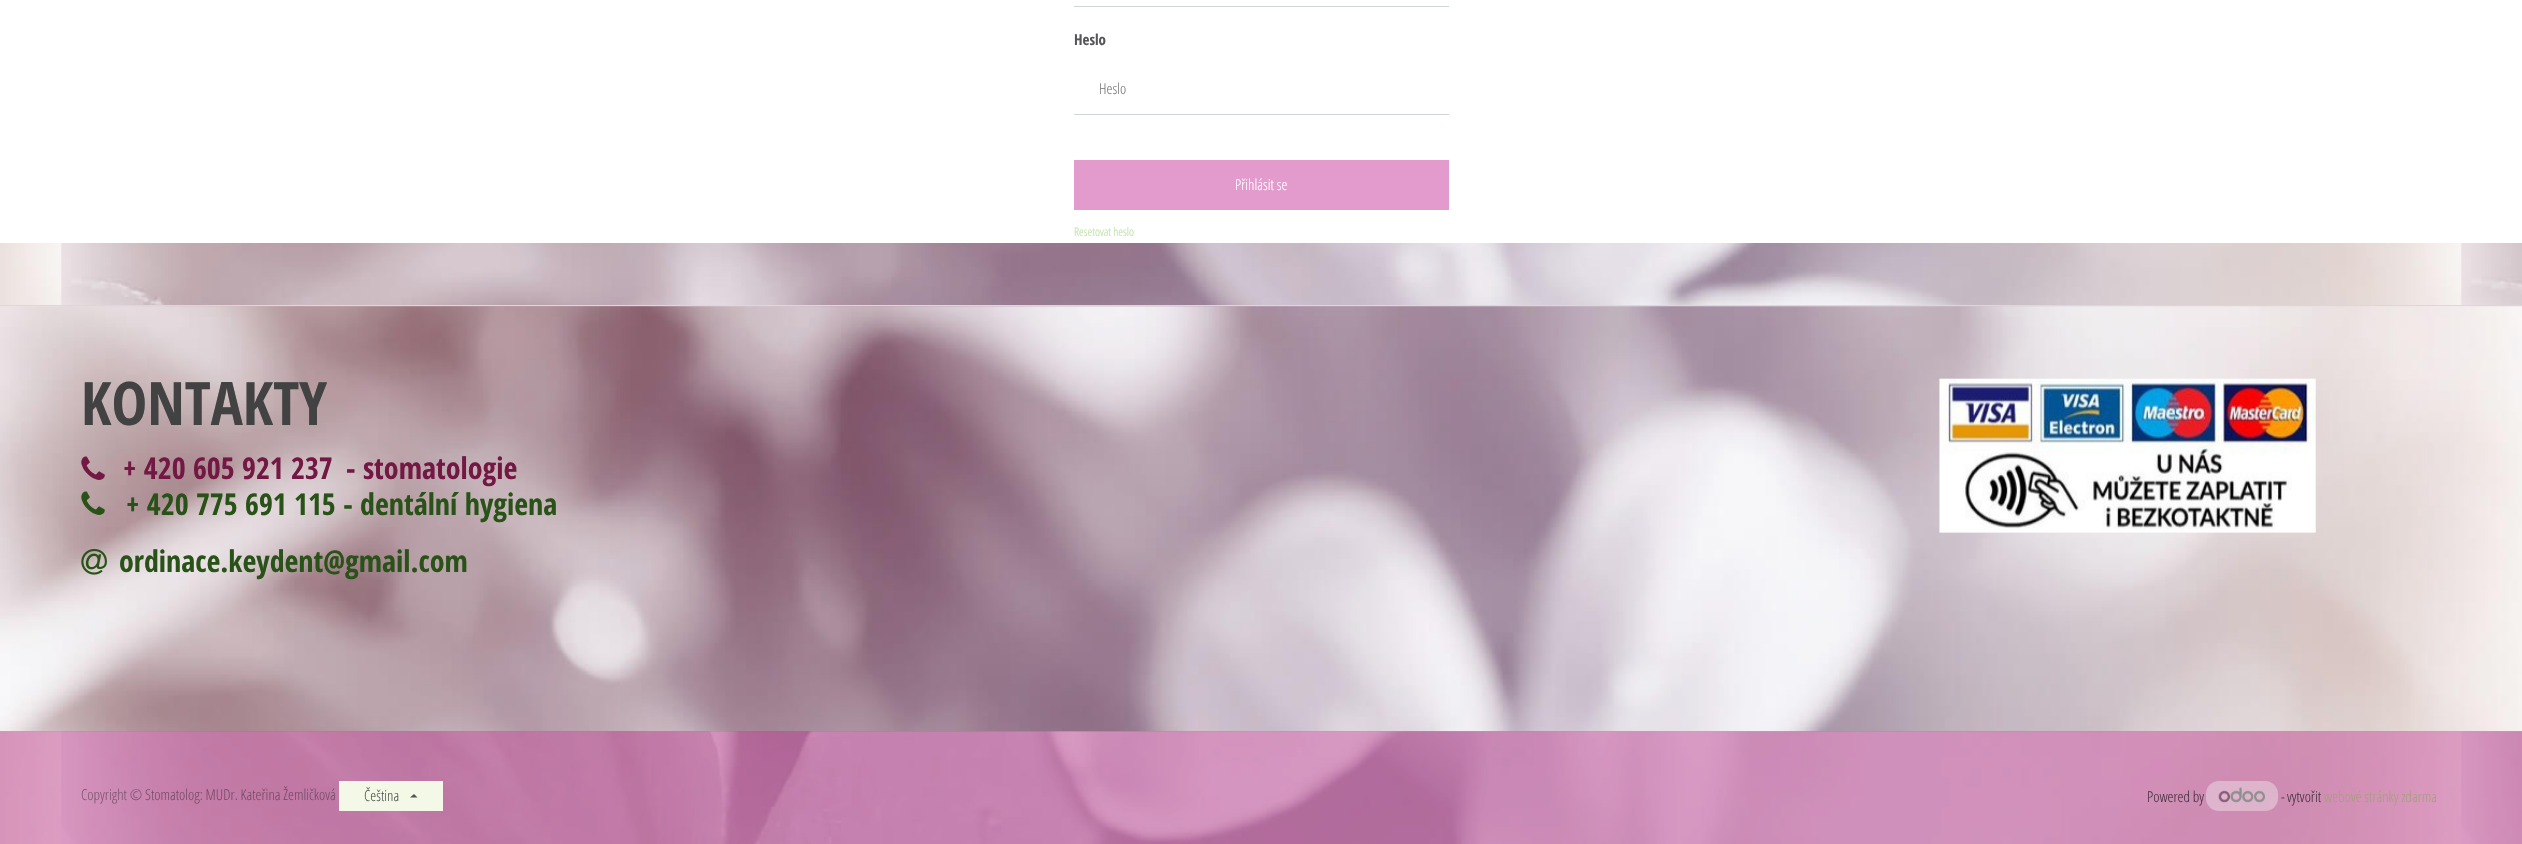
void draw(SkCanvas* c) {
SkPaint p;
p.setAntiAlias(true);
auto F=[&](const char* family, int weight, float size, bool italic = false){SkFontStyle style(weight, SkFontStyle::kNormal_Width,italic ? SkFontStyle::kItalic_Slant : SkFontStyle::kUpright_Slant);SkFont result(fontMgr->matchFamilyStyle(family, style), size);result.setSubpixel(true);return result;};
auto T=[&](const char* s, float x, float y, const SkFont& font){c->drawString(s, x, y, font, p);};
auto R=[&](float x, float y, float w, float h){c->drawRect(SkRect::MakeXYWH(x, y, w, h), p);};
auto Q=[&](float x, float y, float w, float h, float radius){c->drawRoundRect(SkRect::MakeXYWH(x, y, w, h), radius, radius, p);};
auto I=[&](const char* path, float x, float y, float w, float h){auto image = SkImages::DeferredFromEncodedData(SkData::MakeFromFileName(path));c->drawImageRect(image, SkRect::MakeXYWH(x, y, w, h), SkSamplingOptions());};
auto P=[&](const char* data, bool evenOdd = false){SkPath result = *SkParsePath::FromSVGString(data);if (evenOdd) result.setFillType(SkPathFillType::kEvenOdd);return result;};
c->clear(0xffffffff);
I("1.png",0,243,2522,601);
p.setColor(0xffced4da);
R(1074,6,375,1);
auto f1 = F("Open Sans Condensed",700,15);
p.setColor(0xff55555a);
T("Heslo",1074,45,f1);
p.setColor(0xffced4da);
R(1074,114,375,1);
auto f2 = F("Open Sans Condensed",300,15);
p.setColor(0xff777777);
T("Heslo",1099,94,f2);
p.setColor(0xffe39acd);
R(1074,160,375,50);
p.setColor(0xffffffff);
T("Přihlásit se",1235,190,f2);
auto f3 = F("Open Sans Condensed",300,12);
p.setColor(0xffbee2a7);
T("Resetovat heslo",1074,236,f3);
p.setColor(0x29f7e3f4);
R(0,306,2522,538);
p.setColor(0xffd9d9d9);
R(0,305,2522,1);
I("2.png",0,306,2522,426);
auto f4 = F("Open Sans Condensed",700,60);
p.setColor(0xff424242);
T("KONTAKTY",81,425,f4);
I("3.png",1939,378,377,155);
I("4.png",81,456,24,24);
auto f5 = F("Open Sans Condensed",700,30);
p.setColor(0xff731842);
T("+ 420 605 921 237",123,479,f5);
T("- stomatologie",346,479,f5);
I("5.png",81,491,24,24);
p.setColor(0xff295218);
T("+ 420 775 691 115 - dentální hygiena",126,515,f5);
I("6.png",81,548,26,27);
T("ordinace.keydent@gmail.com",119,572,f5);
p.setColor(0x61b3187a);
R(0,731,2522,113);
p.setColor(0xff7d5471);
T("Copyright ©",81,800,f2);
p.setColor(0xff764b68);
T("Stomatolog: MUDr. Kateřina Žemličková",145,800,f2);
p.setColor(0xfff4f8e6);
R(339,781,104,30);
p.setColor(0xff525351);
T("Čeština",364,801,f2);
c->drawPath(P("M417.5 797.5h-7.5l4-3.5z"),p);
p.setColor(0xff462f41);
T("Powered by",2147,802,f2);
p.setColor(0x61f7f7f8);
Q(2206,781,72,30,13);
I("7.png",2218,787,47,16);
p.setColor(0xff462f41);
T("-",2281,802,f2);
T("vytvořit",2287,802,f2);
p.setColor(0xffa49f7c);
T("webové stránky zdarma",2324,802,f2);
}
